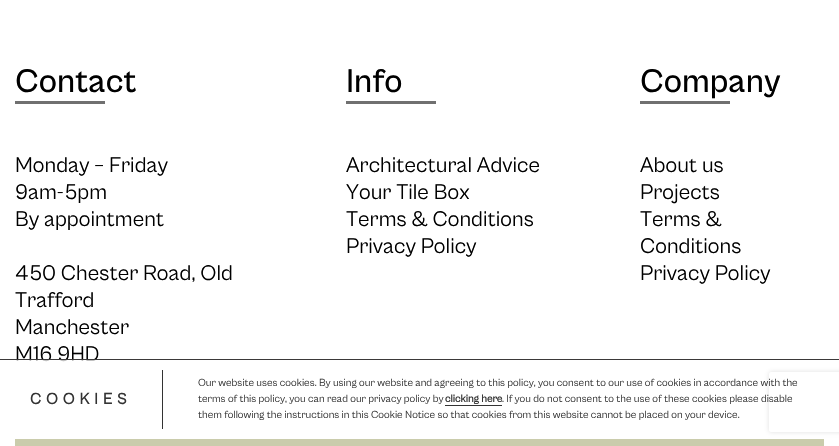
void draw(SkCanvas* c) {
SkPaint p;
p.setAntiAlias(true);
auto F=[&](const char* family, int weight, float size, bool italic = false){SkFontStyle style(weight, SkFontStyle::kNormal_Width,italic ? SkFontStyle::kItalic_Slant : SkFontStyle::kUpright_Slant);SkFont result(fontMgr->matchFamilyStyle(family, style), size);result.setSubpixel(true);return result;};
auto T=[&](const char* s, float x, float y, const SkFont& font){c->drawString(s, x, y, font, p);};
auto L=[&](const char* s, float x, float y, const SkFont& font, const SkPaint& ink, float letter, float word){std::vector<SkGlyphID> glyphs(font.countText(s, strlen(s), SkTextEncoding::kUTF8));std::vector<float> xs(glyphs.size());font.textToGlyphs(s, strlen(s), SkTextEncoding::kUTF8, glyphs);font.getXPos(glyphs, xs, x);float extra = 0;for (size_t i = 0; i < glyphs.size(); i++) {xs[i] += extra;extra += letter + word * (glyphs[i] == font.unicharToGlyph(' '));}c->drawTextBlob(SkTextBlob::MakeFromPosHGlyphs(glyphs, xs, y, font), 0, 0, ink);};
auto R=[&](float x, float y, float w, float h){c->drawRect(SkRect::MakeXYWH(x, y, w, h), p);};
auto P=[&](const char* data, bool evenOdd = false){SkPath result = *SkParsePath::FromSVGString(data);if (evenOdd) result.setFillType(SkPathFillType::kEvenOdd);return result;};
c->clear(0xffffffff);
auto f1 = F("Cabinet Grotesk",500,34);
p.setColor(0xff000000);
T("Contact",15,92,f1);
p.setColor(0xff707070);
R(15,101,90,3);
auto f2 = F("Cabinet Grotesk",400,22);
p.setColor(0xff000000);
T("Monday – Friday",15,172,f2);
T("9am-5pm",15,199,f2);
T("By appointment",15,226,f2);
T("450 Chester Road, Old",15,280,f2);
T("Trafford",15,307,f2);
T("Manchester",15,334,f2);
T("M16 9HD",15,361,f2);
T("Info",346,92,f1);
p.setColor(0xff707070);
R(346,101,90,3);
p.setColor(0xff000000);
T("Architectural Advice",346,172,f2);
T("Your Tile Box",346,199,f2);
T("Terms & Conditions",346,226,f2);
T("Privacy Policy",346,253,f2);
T("Company",640,92,f1);
p.setColor(0xff707070);
R(640,101,90,3);
p.setColor(0xff000000);
T("About us",640,172,f2);
T("Projects",640,199,f2);
T("Terms &",640,226,f2);
T("Conditions",640,253,f2);
T("Privacy Policy",640,280,f2);
c->save();
c->clipPath(P("M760 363h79v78h-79zm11 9h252c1 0 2 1 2 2v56c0 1-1 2-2 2h-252c-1 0-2-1-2-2v-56c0-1 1-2 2-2z",true),true);
p.setColor(0xff808080);
p.setMaskFilter(SkMaskFilter::MakeBlur(kNormal_SkBlurStyle, 2.5));
c->drawRoundRect(SkRect::MakeXYWH(769,372,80,60),2,2,p);
p.setMaskFilter(nullptr);
c->restore();
p.setColor(0xbfffffff);
R(16,360,823,77);
p.setColor(0xff3b3939);
R(0,359,839,1);
p.setColor(0xff333333);
R(162,370,1,59);
auto f3 = F("Cabinet Grotesk",700,16);
L("COOKIES",30,404,f3,p,5,0);
auto f4 = F("Cabinet Grotesk",400,10.67);
T("Our website uses cookies. By using our website and agreeing to this policy, you consent to our use of cookies in accordance with the",198,386,f4);
T("terms of this policy, you can read our privacy policy by",198,402,f4);
auto f5 = F("Cabinet Grotesk",700,10.67);
T("clicking here",445,402,f5);
R(445,405,57,1);
T(". If you do not consent to the use of these cookies please disable",502,402,f4);
T("them following the instructions in this Cookie Notice so that cookies from this website cannot be placed on your device.",198,418,f4);
p.setColor(0xffcaccac);
R(15,439,809,7);
}
